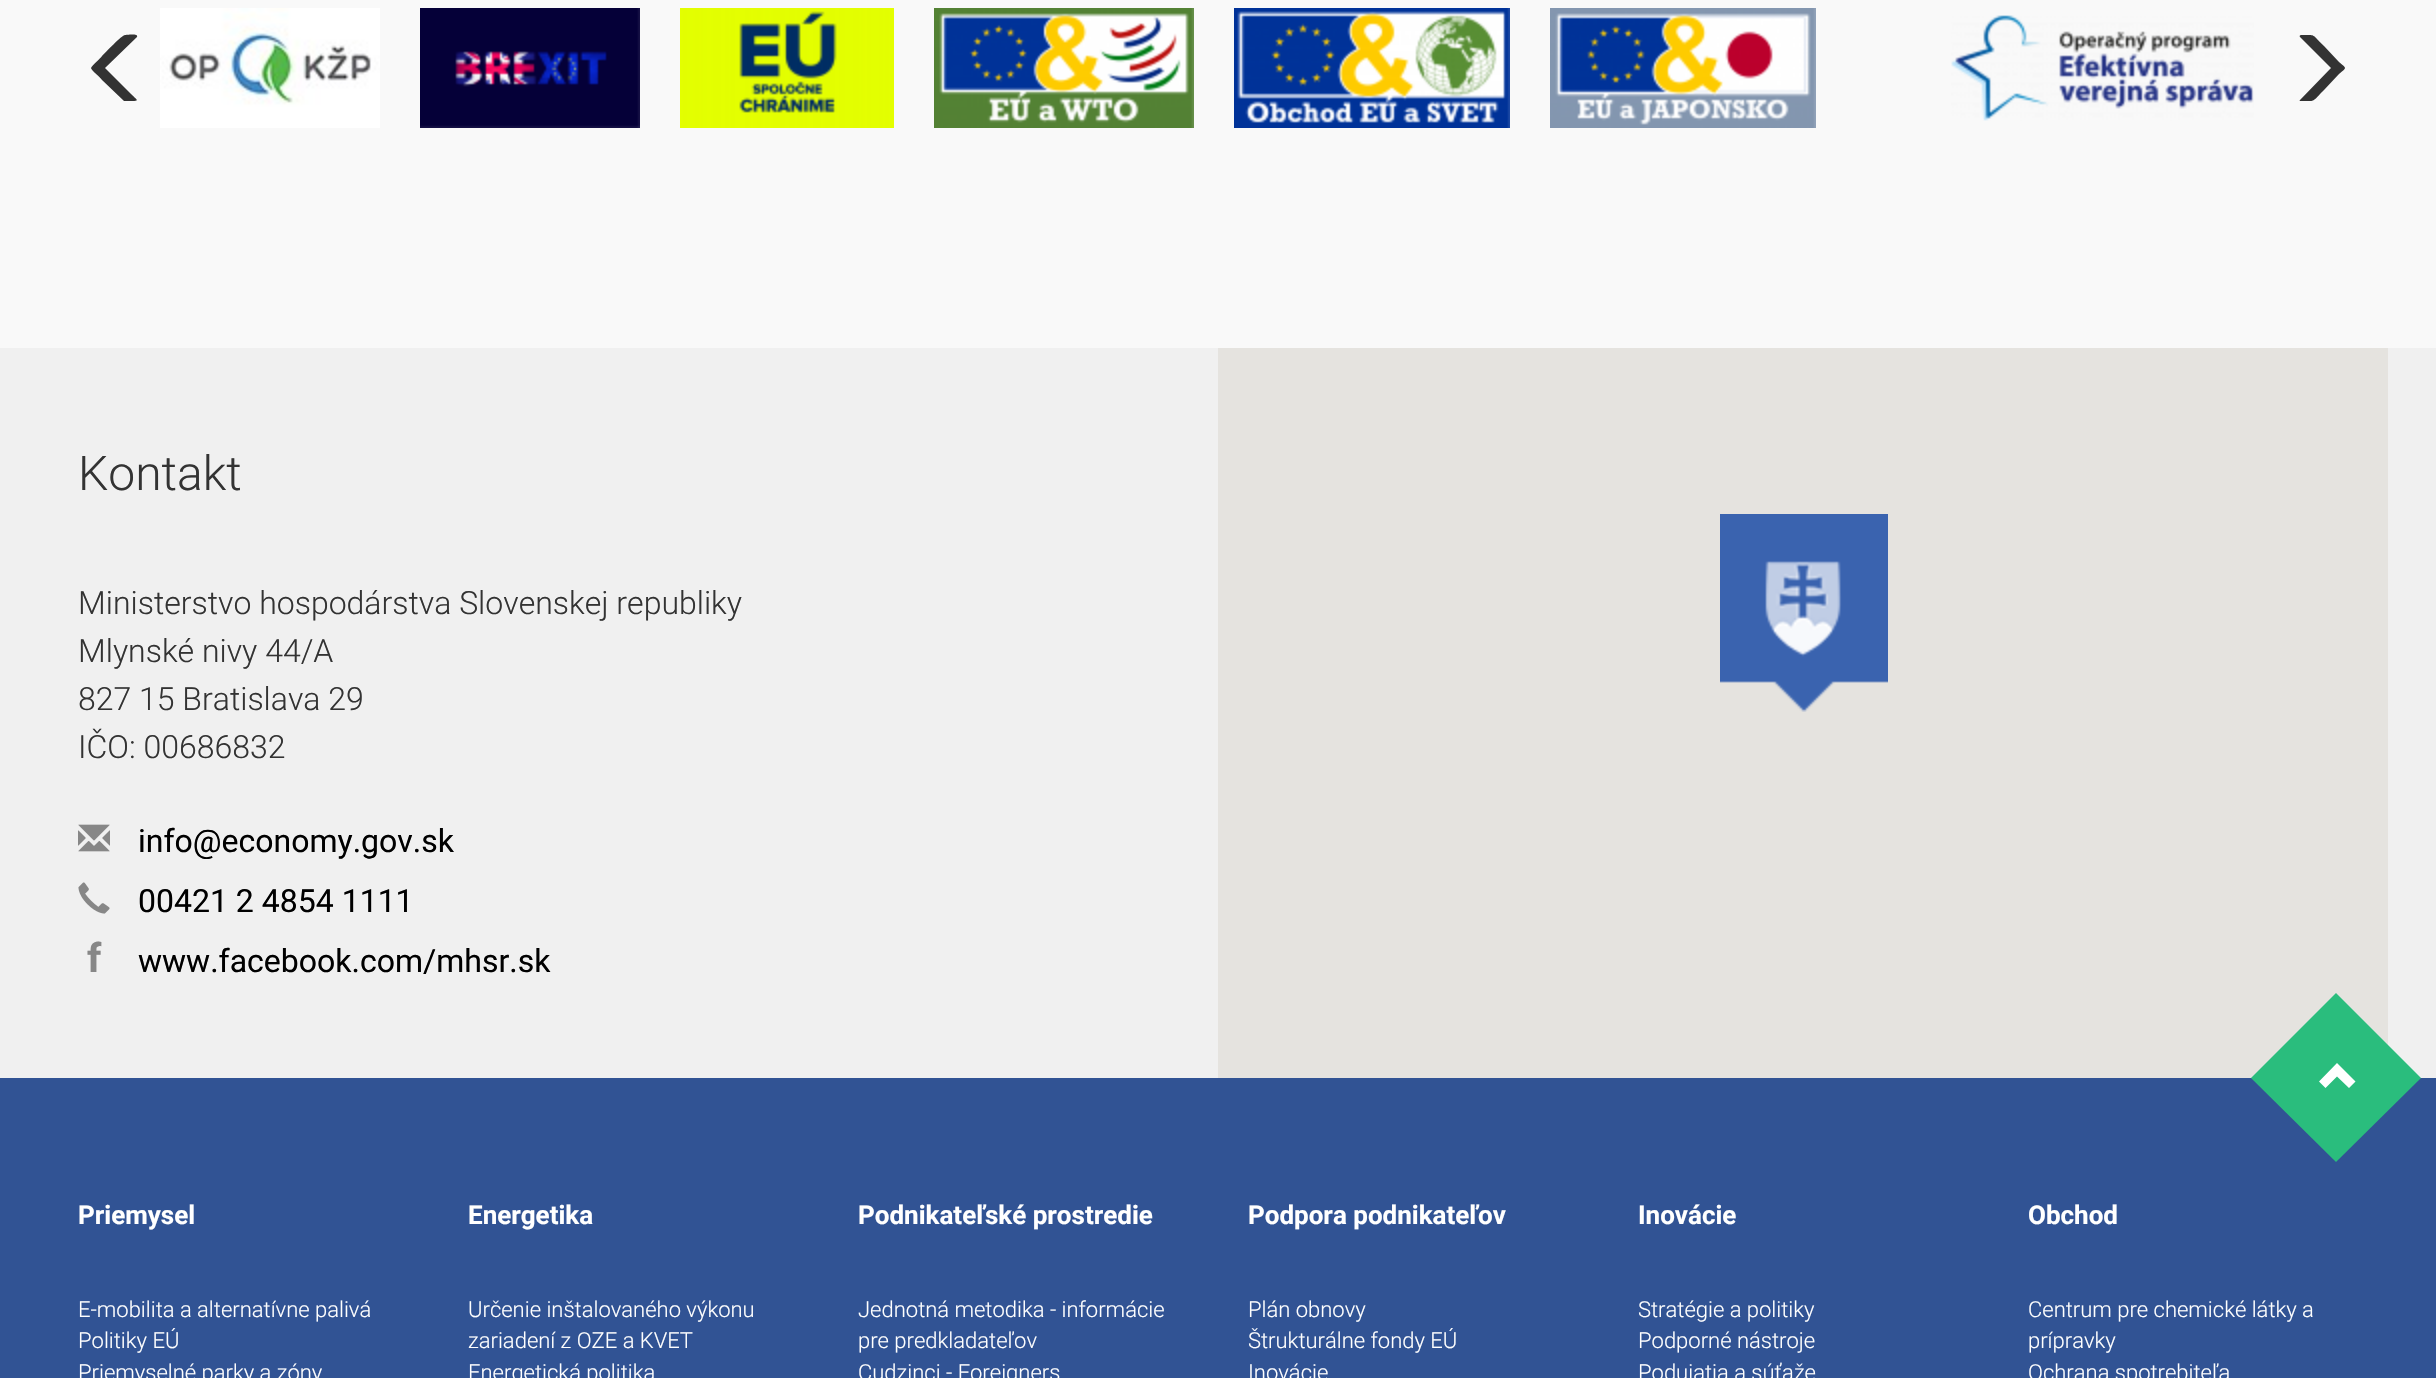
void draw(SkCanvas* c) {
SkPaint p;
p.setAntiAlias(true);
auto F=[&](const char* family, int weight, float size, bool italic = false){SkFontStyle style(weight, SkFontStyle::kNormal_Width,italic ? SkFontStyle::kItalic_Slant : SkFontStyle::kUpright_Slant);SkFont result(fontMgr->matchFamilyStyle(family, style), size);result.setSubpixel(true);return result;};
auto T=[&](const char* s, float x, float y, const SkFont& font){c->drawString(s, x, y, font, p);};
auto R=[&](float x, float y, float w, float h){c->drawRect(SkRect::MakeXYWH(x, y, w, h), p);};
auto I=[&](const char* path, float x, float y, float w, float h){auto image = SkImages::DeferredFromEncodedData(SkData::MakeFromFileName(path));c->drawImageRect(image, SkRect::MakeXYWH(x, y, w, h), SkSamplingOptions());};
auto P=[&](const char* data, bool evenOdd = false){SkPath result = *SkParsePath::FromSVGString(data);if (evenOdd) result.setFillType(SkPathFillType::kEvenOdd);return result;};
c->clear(0xfff9f9f9);
I("1.png",160,8,220,120);
I("2.png",420,8,220,120);
I("3.png",680,8,214,120);
I("4.png",934,8,260,120);
I("5.png",1234,8,276,120);
I("6.png",1550,8,266,120);
I("7.png",1951,15,303,106);
p.setColor(0xff333333);
c->drawPath(P("M125 35c1 0 14-2 12 2l-32 31l26 26c6 6 9 7 1 7h-8l-22-21c-1-2-11-10-11-12c1-3 10-10 11-12c3-3 20-21 23-21z"),p);
c->drawPath(P("M2301 35c15 0 10-2 23 11l15 16c8 7 8 5 0 12l-15 16c-13 13-8 11-23 11c-1 0-2 0-1-1l31-32l-31-31c-1-1 0-2 1-2z"),p);
p.setColor(0xfff0f0f0);
R(0,348,2436,730);
auto f1 = F("Roboto",300,48);
p.setColor(0xff333333);
T("Kontakt",78,490,f1);
auto f2 = F("Roboto",300,32);
T("Ministerstvo hospodárstva Slovenskej republiky",78,614,f2);
T("Mlynské nivy 44/A",78,662,f2);
T("827 15 Bratislava 29",78,710,f2);
T("IČO: 00686832",78,758,f2);
I("8.png",78,824,32,28);
auto f3 = F("Roboto",400,32);
p.setColor(0xff000000);
T("info@economy.gov.sk",138,852,f3);
I("9.png",78,882,32,32);
T("00421 2 4854 1111",138,912,f3);
auto f4 = F("Roboto",700,40);
p.setColor(0xff878787);
T("f",87,972,f4);
p.setColor(0xff000000);
T("www.facebook.com/mhsr.sk",138,972,f3);
p.setColor(0xffe5e3df);
R(1218,348,1170,730);
I("10.png",1720,514,168,198);
p.setColor(0xff315394);
R(0,1078,2436,300);
p.setColor(0xff2abd7d);
c->drawPath(P("M2336 993l85 85l-85 84l-85-84z"),p);
p.setColor(0xffffffff);
c->drawPath(P("M2355.5 1081.5l-6.5 6.5l-12-11.5l-11.5 11.5l-6.5-6.5l18-18.5z"),p);
auto f5 = F("Roboto",700,26);
T("Priemysel",78,1224,f5);
auto f6 = F("Roboto",300,22);
T("E-mobilita a alternatívne palivá",78,1317,f6);
T("Politiky EÚ",78,1348,f6);
T("Priemyselné parky a zóny",78,1380,f6);
T("Energetika",468,1224,f5);
T("Určenie inštalovaného výkonu",468,1317,f6);
T("zariadení z OZE a KVET",468,1348,f6);
T("Energetická politika",468,1380,f6);
T("Podnikateľské prostredie",858,1224,f5);
T("Jednotná metodika - informácie",858,1317,f6);
T("pre predkladateľov",858,1348,f6);
T("Cudzinci - Foreigners",858,1380,f6);
T("Podpora podnikateľov",1248,1224,f5);
T("Plán obnovy",1248,1317,f6);
T("Štrukturálne fondy EÚ",1248,1348,f6);
T("Inovácie",1248,1380,f6);
T("Inovácie",1638,1224,f5);
T("Stratégie a politiky",1638,1317,f6);
T("Podporné nástroje",1638,1348,f6);
T("Podujatia a súťaže",1638,1380,f6);
T("Obchod",2028,1224,f5);
T("Centrum pre chemické látky a",2028,1317,f6);
T("prípravky",2028,1348,f6);
T("Ochrana spotrebiteľa",2028,1380,f6);
}
